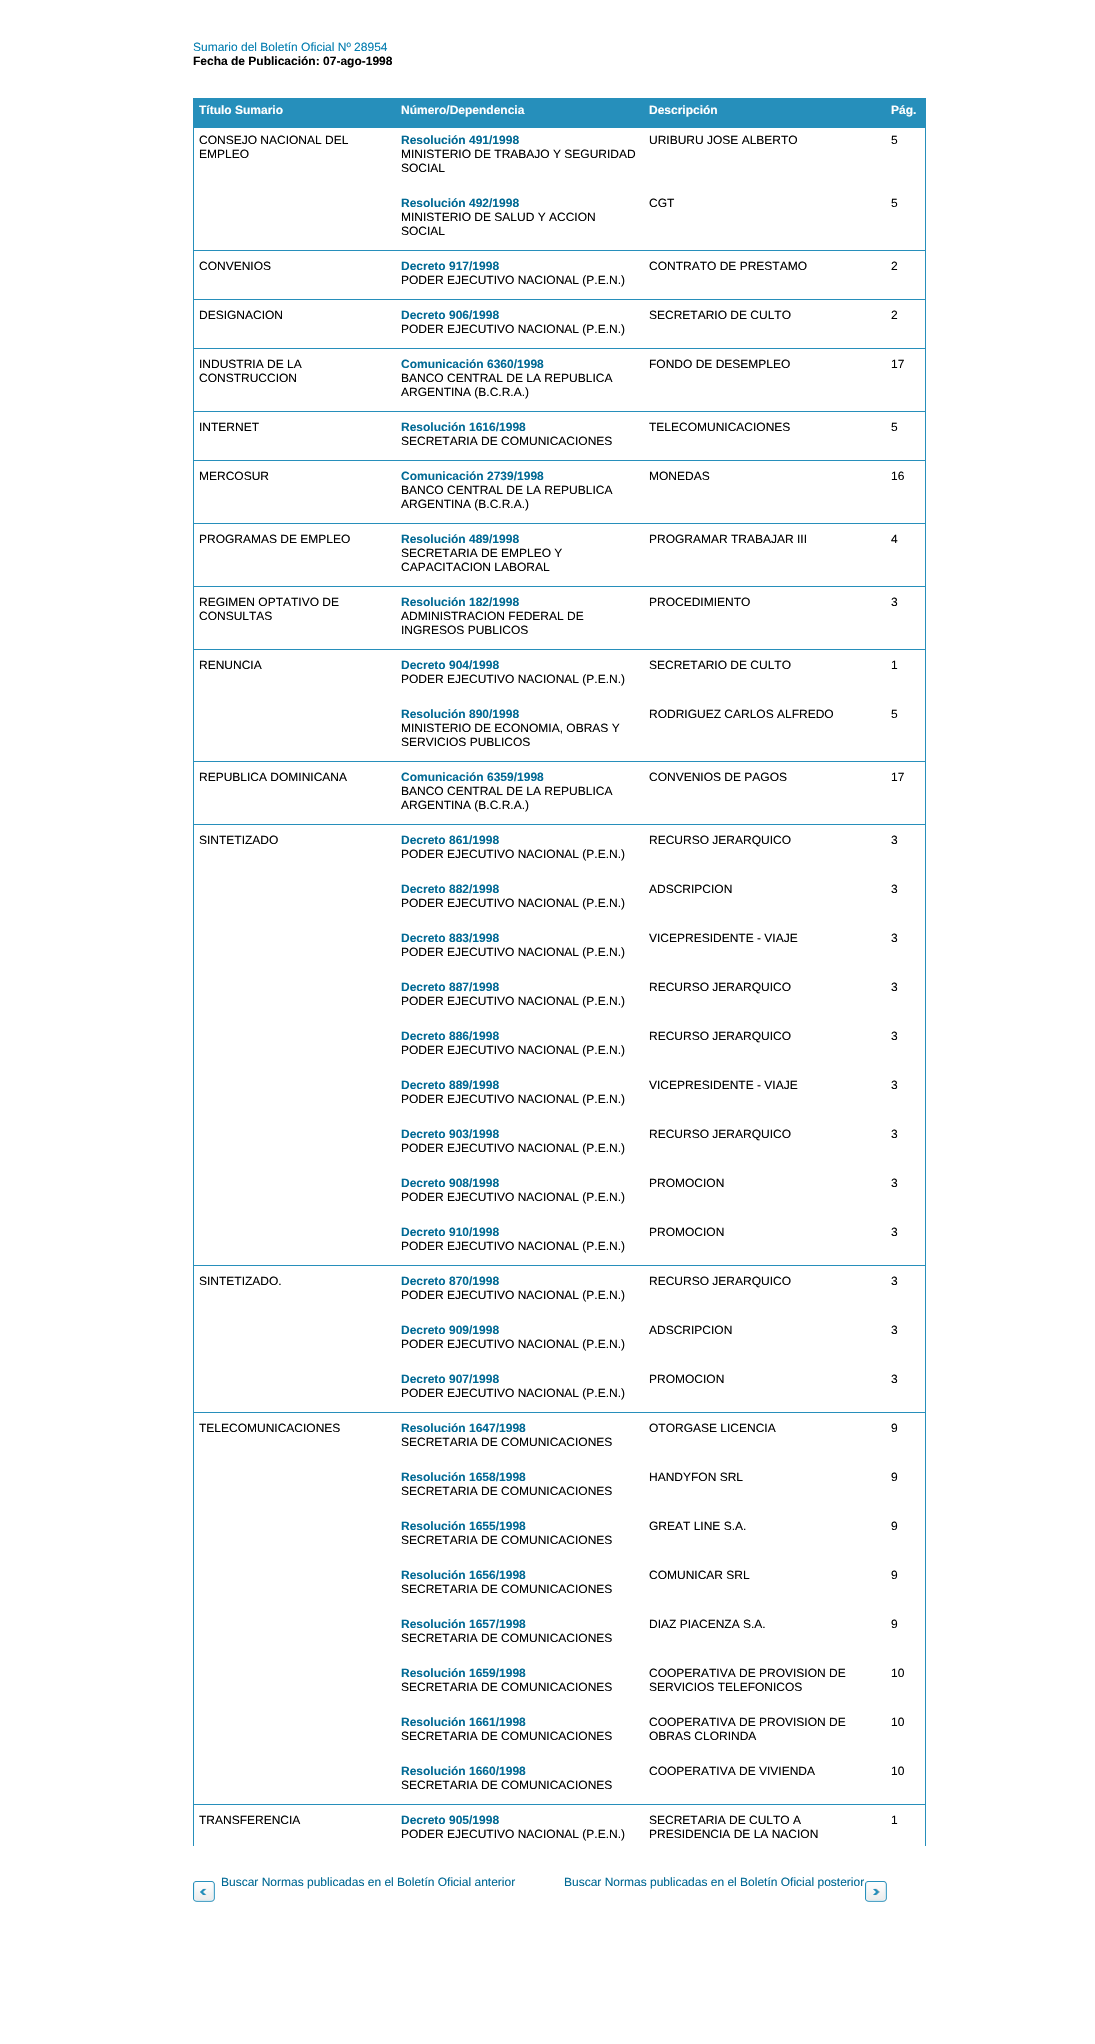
void draw(SkCanvas* c) {
SkPaint p;
p.setAntiAlias(true);
auto F=[&](const char* family, int weight, float size, bool italic = false){SkFontStyle style(weight, SkFontStyle::kNormal_Width,italic ? SkFontStyle::kItalic_Slant : SkFontStyle::kUpright_Slant);SkFont result(fontMgr->matchFamilyStyle(family, style), size);result.setSubpixel(true);return result;};
auto T=[&](const char* s, float x, float y, const SkFont& font){c->drawString(s, x, y, font, p);};
auto R=[&](float x, float y, float w, float h){c->drawRect(SkRect::MakeXYWH(x, y, w, h), p);};
auto I=[&](const char* path, float x, float y, float w, float h){auto image = SkImages::DeferredFromEncodedData(SkData::MakeFromFileName(path));c->drawImageRect(image, SkRect::MakeXYWH(x, y, w, h), SkSamplingOptions());};
c->clear(0xffffffff);
auto f1 = F("Liberation Sans",400,12);
p.setColor(0xff037db0);
T("Sumario del Boletín Oficial Nº 28954",193,51,f1);
auto f2 = F("Liberation Sans",700,12);
p.setColor(0xff000000);
T("Fecha de Publicación: 07-ago-1998",193,65,f2);
p.setColor(0xff268fbb);
R(925,98,1,1748);
R(193,98,1,1748);
R(194,98,731,30);
p.setColor(0xffffffff);
T("Título Sumario",199,114,f2);
T("Número/Dependencia",401,114,f2);
T("Descripción",649,114,f2);
T("Pág.",891,114,f2);
p.setColor(0xff000000);
T("CONSEJO NACIONAL DEL",199,144,f1);
T("EMPLEO",199,158,f1);
p.setColor(0xff016994);
T("Resolución 491/1998",401,144,f2);
p.setColor(0xff000000);
T("MINISTERIO DE TRABAJO Y SEGURIDAD",401,158,f1);
T("SOCIAL",401,172,f1);
T("URIBURU JOSE ALBERTO",649,144,f1);
T("5",891,144,f1);
p.setColor(0xff016994);
T("Resolución 492/1998",401,207,f2);
p.setColor(0xff000000);
T("MINISTERIO DE SALUD Y ACCION",401,221,f1);
T("SOCIAL",401,235,f1);
T("CGT",649,207,f1);
T("5",891,207,f1);
p.setColor(0xff278fbb);
R(194,250,731,1);
p.setColor(0xff000000);
T("CONVENIOS",199,270,f1);
p.setColor(0xff016994);
T("Decreto 917/1998",401,270,f2);
p.setColor(0xff000000);
T("PODER EJECUTIVO NACIONAL (P.E.N.)",401,284,f1);
T("CONTRATO DE PRESTAMO",649,270,f1);
T("2",891,270,f1);
p.setColor(0xff278fbb);
R(194,299,731,1);
p.setColor(0xff000000);
T("DESIGNACION",199,319,f1);
p.setColor(0xff016994);
T("Decreto 906/1998",401,319,f2);
p.setColor(0xff000000);
T("PODER EJECUTIVO NACIONAL (P.E.N.)",401,333,f1);
T("SECRETARIO DE CULTO",649,319,f1);
T("2",891,319,f1);
p.setColor(0xff278fbb);
R(194,348,731,1);
p.setColor(0xff000000);
T("INDUSTRIA DE LA",199,368,f1);
T("CONSTRUCCION",199,382,f1);
p.setColor(0xff016994);
T("Comunicación 6360/1998",401,368,f2);
p.setColor(0xff000000);
T("BANCO CENTRAL DE LA REPUBLICA",401,382,f1);
T("ARGENTINA (B.C.R.A.)",401,396,f1);
T("FONDO DE DESEMPLEO",649,368,f1);
T("17",891,368,f1);
p.setColor(0xff278fbb);
R(194,411,731,1);
p.setColor(0xff000000);
T("INTERNET",199,431,f1);
p.setColor(0xff016994);
T("Resolución 1616/1998",401,431,f2);
p.setColor(0xff000000);
T("SECRETARIA DE COMUNICACIONES",401,445,f1);
T("TELECOMUNICACIONES",649,431,f1);
T("5",891,431,f1);
p.setColor(0xff278fbb);
R(194,460,731,1);
p.setColor(0xff000000);
T("MERCOSUR",199,480,f1);
p.setColor(0xff016994);
T("Comunicación 2739/1998",401,480,f2);
p.setColor(0xff000000);
T("BANCO CENTRAL DE LA REPUBLICA",401,494,f1);
T("ARGENTINA (B.C.R.A.)",401,508,f1);
T("MONEDAS",649,480,f1);
T("16",891,480,f1);
p.setColor(0xff278fbb);
R(194,523,731,1);
p.setColor(0xff000000);
T("PROGRAMAS DE EMPLEO",199,543,f1);
p.setColor(0xff016994);
T("Resolución 489/1998",401,543,f2);
p.setColor(0xff000000);
T("SECRETARIA DE EMPLEO Y",401,557,f1);
T("CAPACITACION LABORAL",401,571,f1);
T("PROGRAMAR TRABAJAR III",649,543,f1);
T("4",891,543,f1);
p.setColor(0xff278fbb);
R(194,586,731,1);
p.setColor(0xff000000);
T("REGIMEN OPTATIVO DE",199,606,f1);
T("CONSULTAS",199,620,f1);
p.setColor(0xff016994);
T("Resolución 182/1998",401,606,f2);
p.setColor(0xff000000);
T("ADMINISTRACION FEDERAL DE",401,620,f1);
T("INGRESOS PUBLICOS",401,634,f1);
T("PROCEDIMIENTO",649,606,f1);
T("3",891,606,f1);
p.setColor(0xff278fbb);
R(194,649,731,1);
p.setColor(0xff000000);
T("RENUNCIA",199,669,f1);
p.setColor(0xff016994);
T("Decreto 904/1998",401,669,f2);
p.setColor(0xff000000);
T("PODER EJECUTIVO NACIONAL (P.E.N.)",401,683,f1);
T("SECRETARIO DE CULTO",649,669,f1);
T("1",891,669,f1);
p.setColor(0xff016994);
T("Resolución 890/1998",401,718,f2);
p.setColor(0xff000000);
T("MINISTERIO DE ECONOMIA, OBRAS Y",401,732,f1);
T("SERVICIOS PUBLICOS",401,746,f1);
T("RODRIGUEZ CARLOS ALFREDO",649,718,f1);
T("5",891,718,f1);
p.setColor(0xff278fbb);
R(194,761,731,1);
p.setColor(0xff000000);
T("REPUBLICA DOMINICANA",199,781,f1);
p.setColor(0xff016994);
T("Comunicación 6359/1998",401,781,f2);
p.setColor(0xff000000);
T("BANCO CENTRAL DE LA REPUBLICA",401,795,f1);
T("ARGENTINA (B.C.R.A.)",401,809,f1);
T("CONVENIOS DE PAGOS",649,781,f1);
T("17",891,781,f1);
p.setColor(0xff278fbb);
R(194,824,731,1);
p.setColor(0xff000000);
T("SINTETIZADO",199,844,f1);
p.setColor(0xff016994);
T("Decreto 861/1998",401,844,f2);
p.setColor(0xff000000);
T("PODER EJECUTIVO NACIONAL (P.E.N.)",401,858,f1);
T("RECURSO JERARQUICO",649,844,f1);
T("3",891,844,f1);
p.setColor(0xff016994);
T("Decreto 882/1998",401,893,f2);
p.setColor(0xff000000);
T("PODER EJECUTIVO NACIONAL (P.E.N.)",401,907,f1);
T("ADSCRIPCION",649,893,f1);
T("3",891,893,f1);
p.setColor(0xff016994);
T("Decreto 883/1998",401,942,f2);
p.setColor(0xff000000);
T("PODER EJECUTIVO NACIONAL (P.E.N.)",401,956,f1);
T("VICEPRESIDENTE - VIAJE",649,942,f1);
T("3",891,942,f1);
p.setColor(0xff016994);
T("Decreto 887/1998",401,991,f2);
p.setColor(0xff000000);
T("PODER EJECUTIVO NACIONAL (P.E.N.)",401,1005,f1);
T("RECURSO JERARQUICO",649,991,f1);
T("3",891,991,f1);
p.setColor(0xff016994);
T("Decreto 886/1998",401,1040,f2);
p.setColor(0xff000000);
T("PODER EJECUTIVO NACIONAL (P.E.N.)",401,1054,f1);
T("RECURSO JERARQUICO",649,1040,f1);
T("3",891,1040,f1);
p.setColor(0xff016994);
T("Decreto 889/1998",401,1089,f2);
p.setColor(0xff000000);
T("PODER EJECUTIVO NACIONAL (P.E.N.)",401,1103,f1);
T("VICEPRESIDENTE - VIAJE",649,1089,f1);
T("3",891,1089,f1);
p.setColor(0xff016994);
T("Decreto 903/1998",401,1138,f2);
p.setColor(0xff000000);
T("PODER EJECUTIVO NACIONAL (P.E.N.)",401,1152,f1);
T("RECURSO JERARQUICO",649,1138,f1);
T("3",891,1138,f1);
p.setColor(0xff016994);
T("Decreto 908/1998",401,1187,f2);
p.setColor(0xff000000);
T("PODER EJECUTIVO NACIONAL (P.E.N.)",401,1201,f1);
T("PROMOCION",649,1187,f1);
T("3",891,1187,f1);
p.setColor(0xff016994);
T("Decreto 910/1998",401,1236,f2);
p.setColor(0xff000000);
T("PODER EJECUTIVO NACIONAL (P.E.N.)",401,1250,f1);
T("PROMOCION",649,1236,f1);
T("3",891,1236,f1);
p.setColor(0xff278fbb);
R(194,1265,731,1);
p.setColor(0xff000000);
T("SINTETIZADO.",199,1285,f1);
p.setColor(0xff016994);
T("Decreto 870/1998",401,1285,f2);
p.setColor(0xff000000);
T("PODER EJECUTIVO NACIONAL (P.E.N.)",401,1299,f1);
T("RECURSO JERARQUICO",649,1285,f1);
T("3",891,1285,f1);
p.setColor(0xff016994);
T("Decreto 909/1998",401,1334,f2);
p.setColor(0xff000000);
T("PODER EJECUTIVO NACIONAL (P.E.N.)",401,1348,f1);
T("ADSCRIPCION",649,1334,f1);
T("3",891,1334,f1);
p.setColor(0xff016994);
T("Decreto 907/1998",401,1383,f2);
p.setColor(0xff000000);
T("PODER EJECUTIVO NACIONAL (P.E.N.)",401,1397,f1);
T("PROMOCION",649,1383,f1);
T("3",891,1383,f1);
p.setColor(0xff278fbb);
R(194,1412,731,1);
p.setColor(0xff000000);
T("TELECOMUNICACIONES",199,1432,f1);
p.setColor(0xff016994);
T("Resolución 1647/1998",401,1432,f2);
p.setColor(0xff000000);
T("SECRETARIA DE COMUNICACIONES",401,1446,f1);
T("OTORGASE LICENCIA",649,1432,f1);
T("9",891,1432,f1);
p.setColor(0xff016994);
T("Resolución 1658/1998",401,1481,f2);
p.setColor(0xff000000);
T("SECRETARIA DE COMUNICACIONES",401,1495,f1);
T("HANDYFON SRL",649,1481,f1);
T("9",891,1481,f1);
p.setColor(0xff016994);
T("Resolución 1655/1998",401,1530,f2);
p.setColor(0xff000000);
T("SECRETARIA DE COMUNICACIONES",401,1544,f1);
T("GREAT LINE S.A.",649,1530,f1);
T("9",891,1530,f1);
p.setColor(0xff016994);
T("Resolución 1656/1998",401,1579,f2);
p.setColor(0xff000000);
T("SECRETARIA DE COMUNICACIONES",401,1593,f1);
T("COMUNICAR SRL",649,1579,f1);
T("9",891,1579,f1);
p.setColor(0xff016994);
T("Resolución 1657/1998",401,1628,f2);
p.setColor(0xff000000);
T("SECRETARIA DE COMUNICACIONES",401,1642,f1);
T("DIAZ PIACENZA S.A.",649,1628,f1);
T("9",891,1628,f1);
p.setColor(0xff016994);
T("Resolución 1659/1998",401,1677,f2);
p.setColor(0xff000000);
T("SECRETARIA DE COMUNICACIONES",401,1691,f1);
T("COOPERATIVA DE PROVISION DE",649,1677,f1);
T("SERVICIOS TELEFONICOS",649,1691,f1);
T("10",891,1677,f1);
p.setColor(0xff016994);
T("Resolución 1661/1998",401,1726,f2);
p.setColor(0xff000000);
T("SECRETARIA DE COMUNICACIONES",401,1740,f1);
T("COOPERATIVA DE PROVISION DE",649,1726,f1);
T("OBRAS CLORINDA",649,1740,f1);
T("10",891,1726,f1);
p.setColor(0xff016994);
T("Resolución 1660/1998",401,1775,f2);
p.setColor(0xff000000);
T("SECRETARIA DE COMUNICACIONES",401,1789,f1);
T("COOPERATIVA DE VIVIENDA",649,1775,f1);
T("10",891,1775,f1);
p.setColor(0xff278fbb);
R(194,1804,731,1);
p.setColor(0xff000000);
T("TRANSFERENCIA",199,1824,f1);
p.setColor(0xff016994);
T("Decreto 905/1998",401,1824,f2);
p.setColor(0xff000000);
T("PODER EJECUTIVO NACIONAL (P.E.N.)",401,1838,f1);
T("SECRETARIA DE CULTO A",649,1824,f1);
T("PRESIDENCIA DE LA NACION",649,1838,f1);
T("1",891,1824,f1);
I("1.png",193,1881,22,21);
p.setColor(0xff016994);
T("Buscar Normas publicadas en el Boletín Oficial anterior",221,1886,f1);
T("Buscar Normas publicadas en el Boletín Oficial posterior",564,1886,f1);
I("2.png",865,1881,22,21);
}
